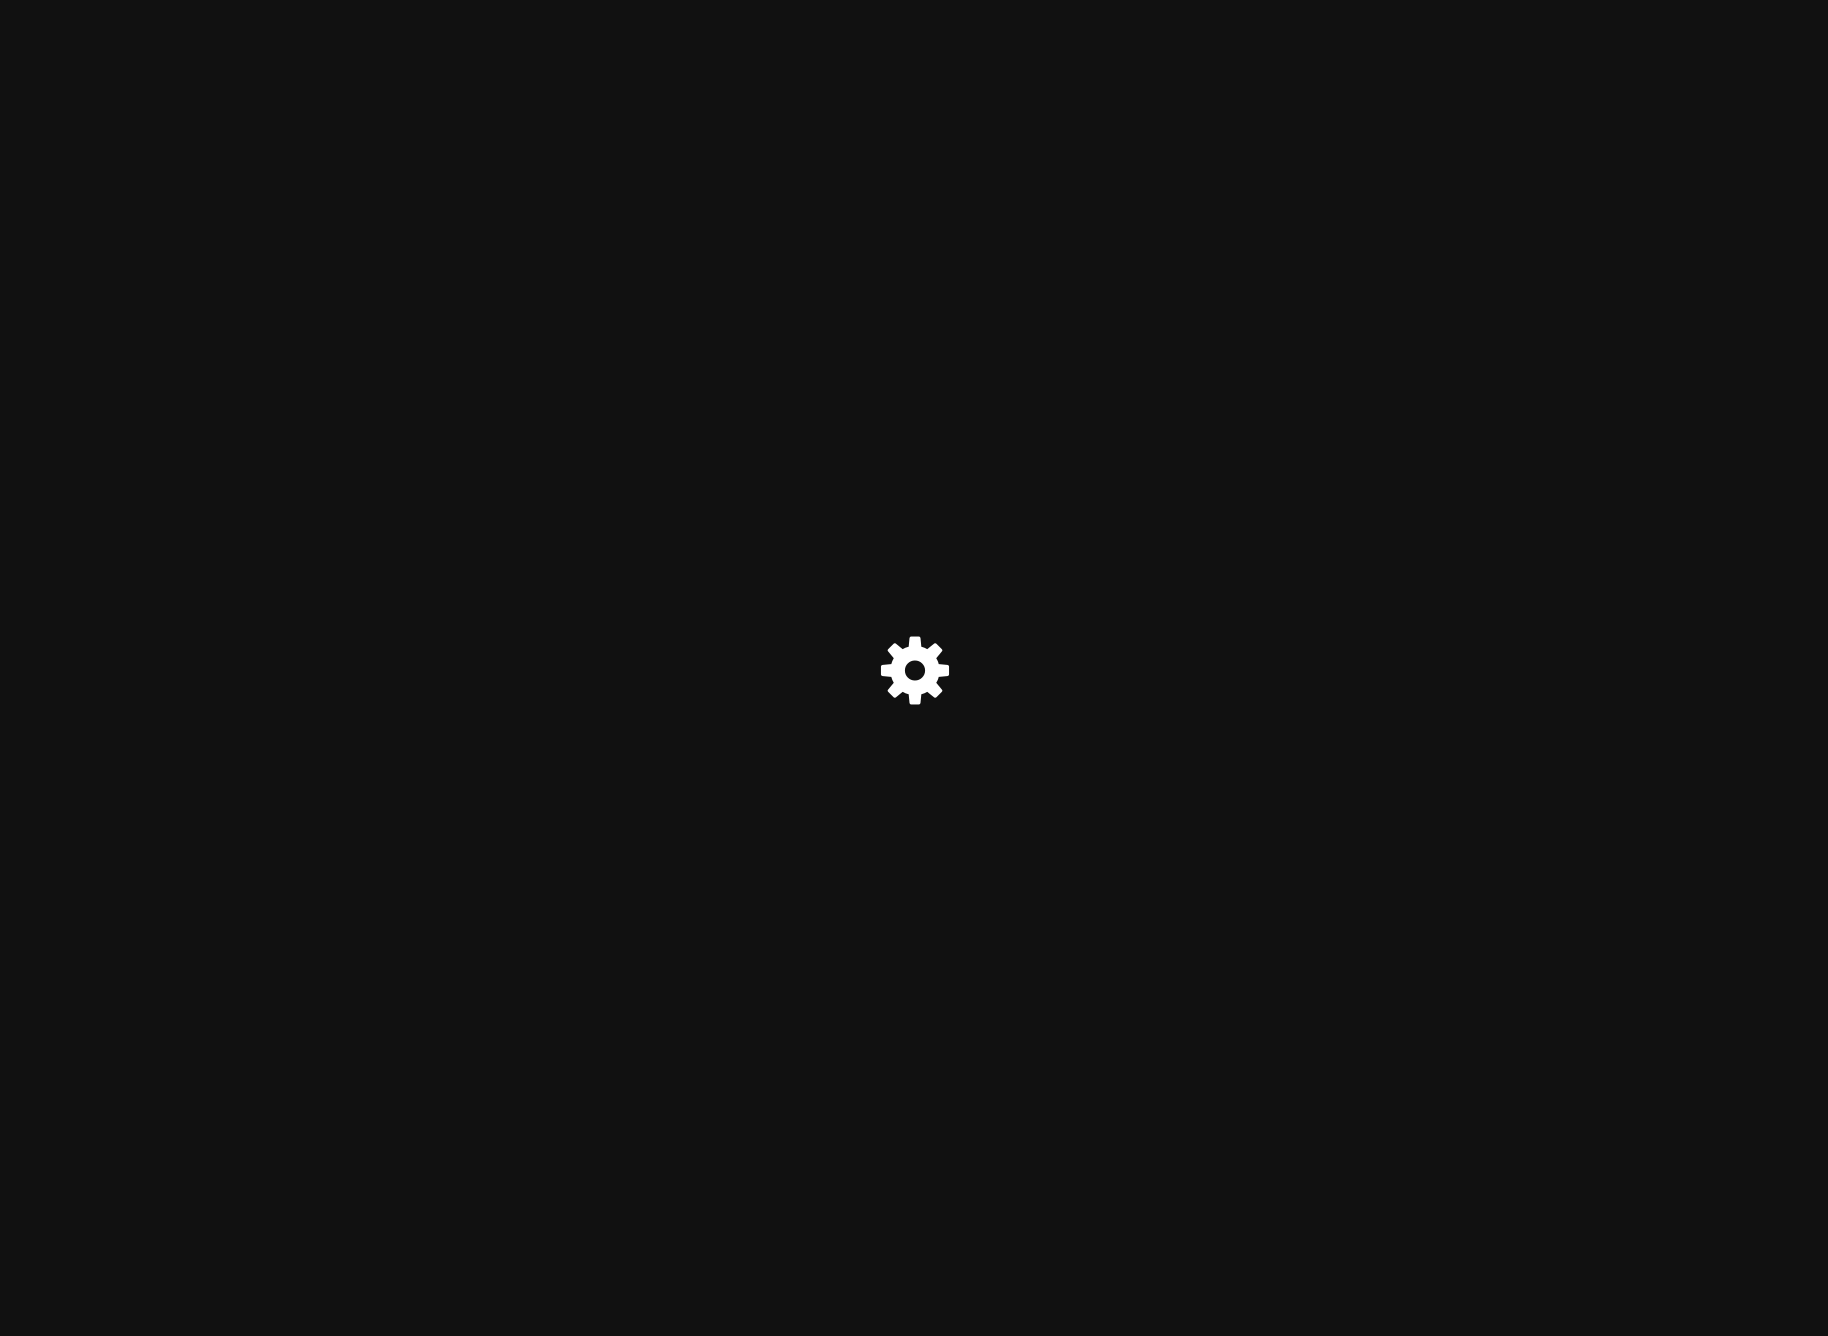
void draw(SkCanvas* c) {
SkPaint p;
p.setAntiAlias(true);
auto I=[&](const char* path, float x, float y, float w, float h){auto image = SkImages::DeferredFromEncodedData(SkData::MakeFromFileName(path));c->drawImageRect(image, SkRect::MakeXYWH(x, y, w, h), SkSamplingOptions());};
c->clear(0xff111111);
I("1.png",880,636,70,69);
}
